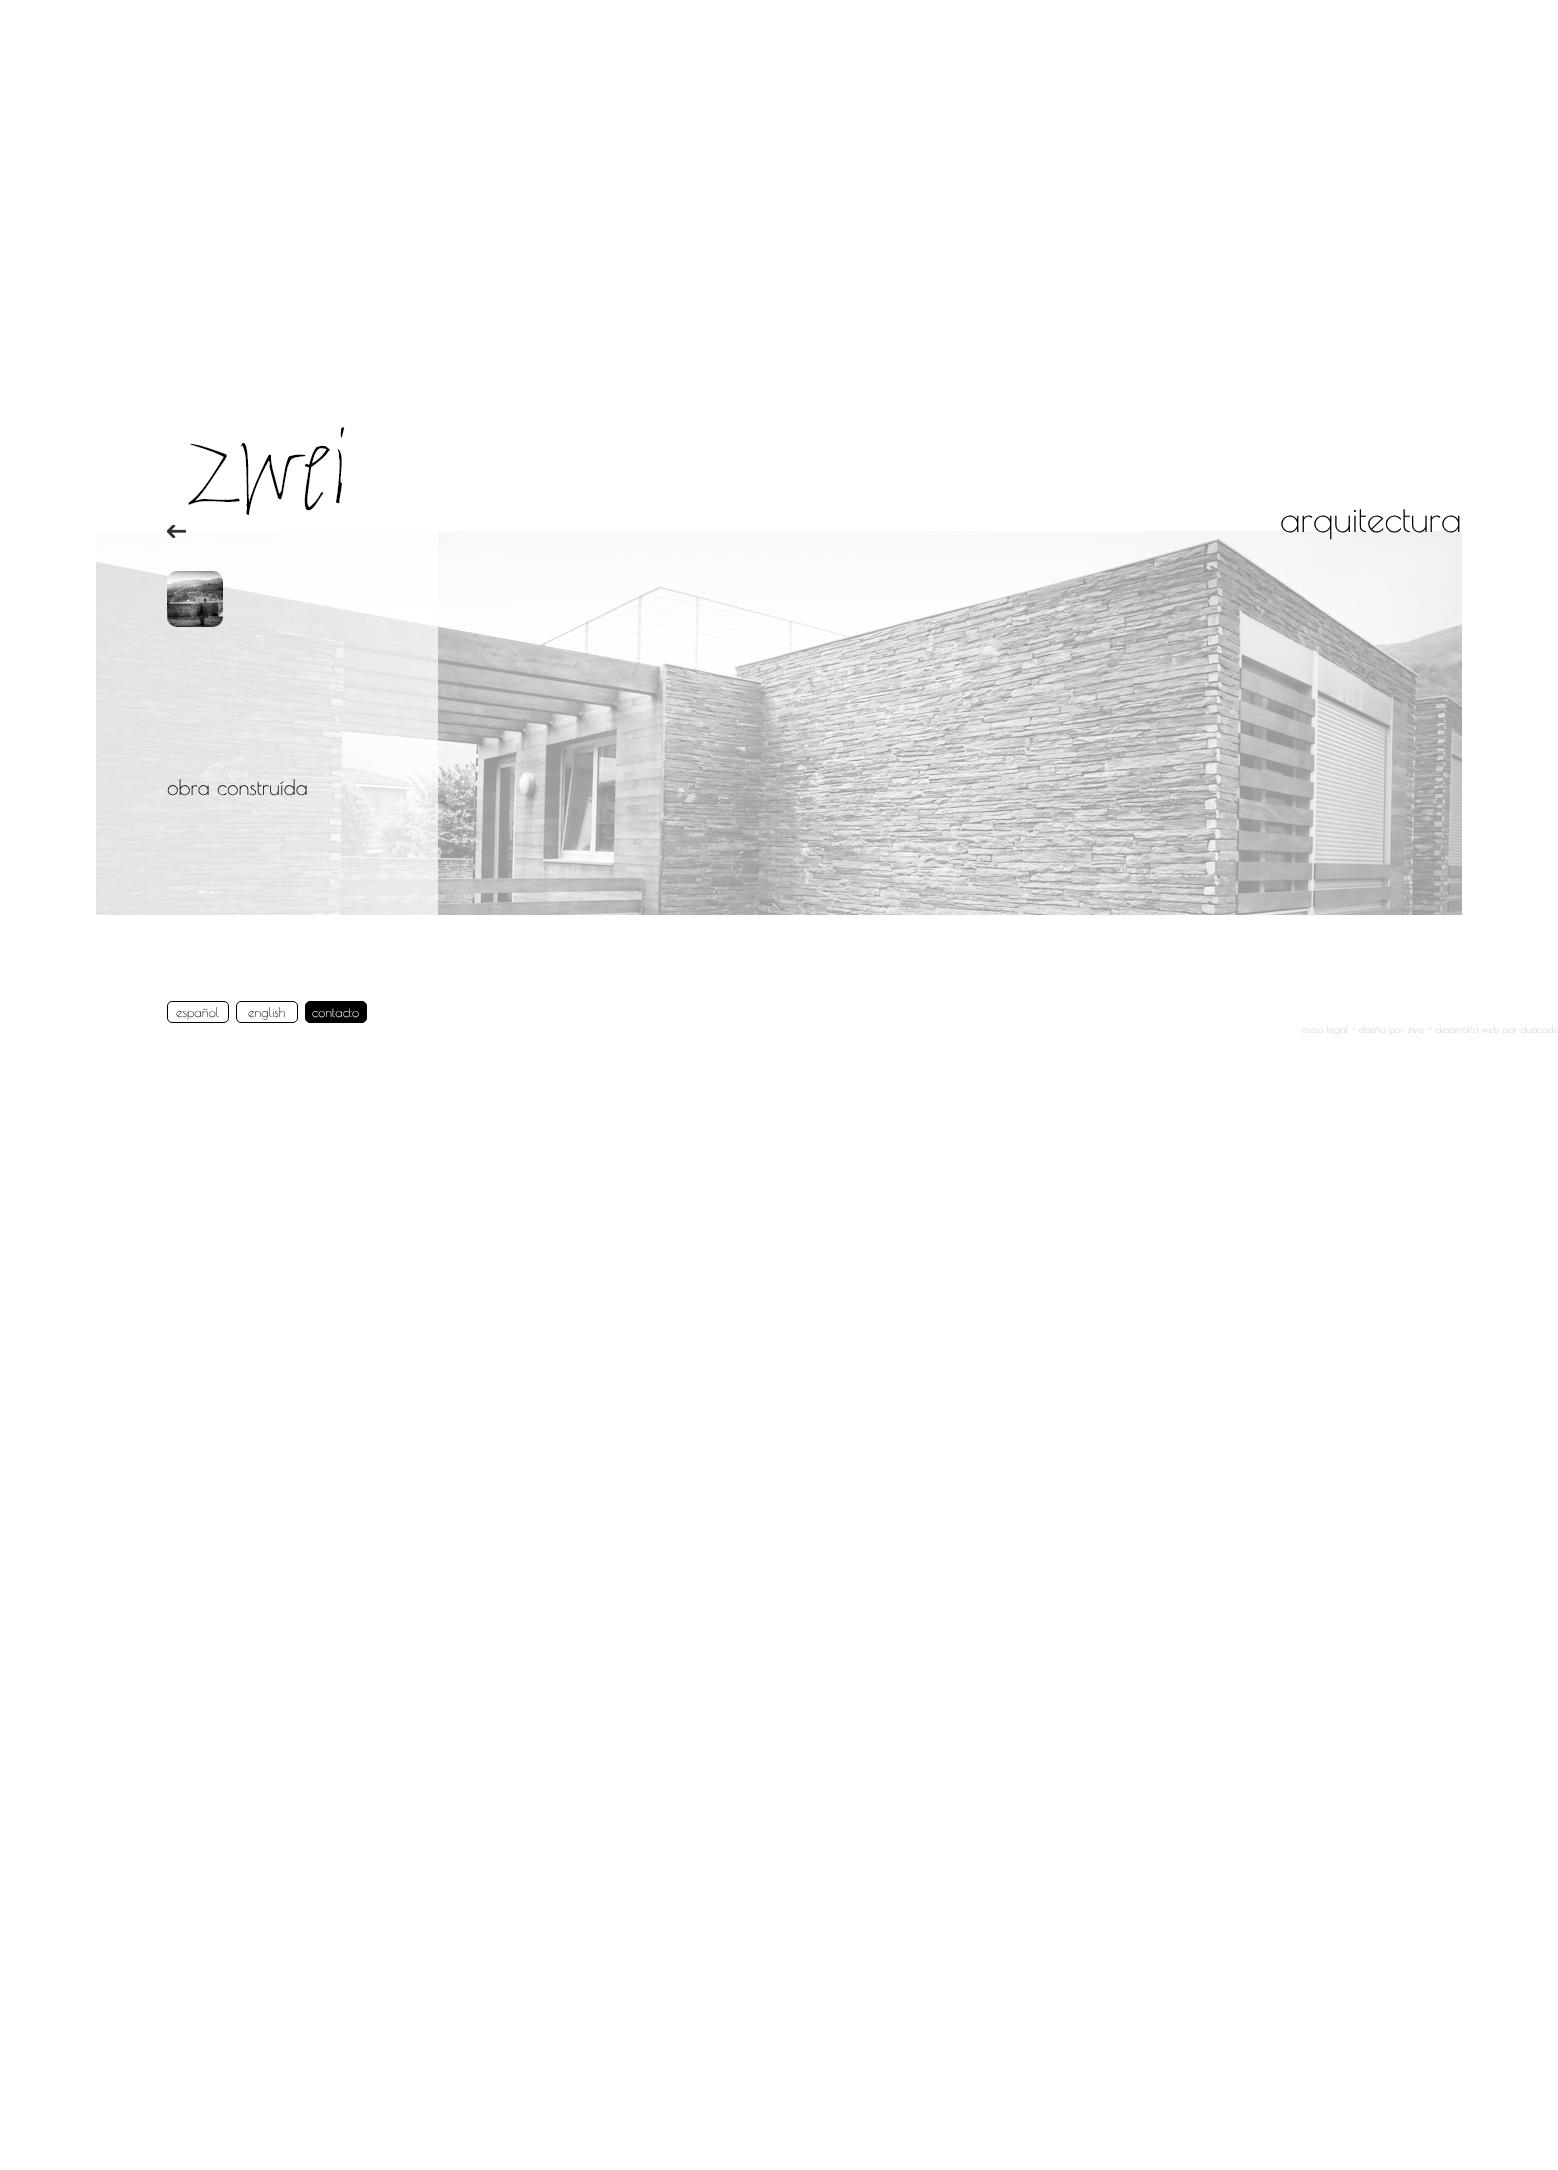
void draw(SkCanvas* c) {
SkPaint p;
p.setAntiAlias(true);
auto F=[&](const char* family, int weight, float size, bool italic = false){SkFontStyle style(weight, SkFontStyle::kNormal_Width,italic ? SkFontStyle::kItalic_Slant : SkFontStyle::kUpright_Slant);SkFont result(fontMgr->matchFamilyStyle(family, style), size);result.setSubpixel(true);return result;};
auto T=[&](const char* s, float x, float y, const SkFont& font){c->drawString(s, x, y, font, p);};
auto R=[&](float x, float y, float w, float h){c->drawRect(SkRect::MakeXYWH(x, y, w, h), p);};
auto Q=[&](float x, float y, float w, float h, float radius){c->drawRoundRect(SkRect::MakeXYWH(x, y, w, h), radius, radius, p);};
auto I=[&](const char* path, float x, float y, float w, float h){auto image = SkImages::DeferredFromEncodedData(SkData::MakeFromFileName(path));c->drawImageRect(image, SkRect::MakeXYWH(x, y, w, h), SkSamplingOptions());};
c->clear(0xffffffff);
I("1.png",188,427,157,89);
I("3.png",96,531,1366,384);
p.setColor(0xb3ffffff);
R(96,531,342,384);
I("2.png",167,525,19,13);
auto f1 = F("Poiret One",400,36);
p.setColor(0xff000000);
T("arquitectura",1280,532,f1);
p.setColor(0xffffffff);
Q(167,571,56,56,10);
I("4.png",167,571,56,56);
auto f2 = F("Poiret One",400,21);
p.setColor(0xff000000);
T("obra construída",167,795,f2);
p.setStroke(true);
p.setStrokeWidth(1);
c->drawRoundRect(SkRect::MakeXYWH(167.5,1001.5,61,21),4.5,4.5,p);
auto f3 = F("Poiret One",400,13);
p.setStroke(false);
T("español",176,1017,f3);
p.setStroke(true);
c->drawRoundRect(SkRect::MakeXYWH(236.5,1001.5,61,21),4.5,4.5,p);
p.setStroke(false);
T("english",248,1017,f3);
c->drawRoundRect(SkRect::MakeXYWH(305.5,1001.5,61,21),4.5,4.5,p);
p.setStroke(true);
c->drawRoundRect(SkRect::MakeXYWH(305.5,1001.5,61,21),4.5,4.5,p);
p.setStroke(false);
p.setColor(0xffffffff);
T("contacto",312,1017,f3);
auto f4 = F("Poiret One",400,10);
p.setColor(0xffcccccc);
T("aviso legal - diseño por zwei - desarrollo web por duacode",1302,1033,f4);
}
